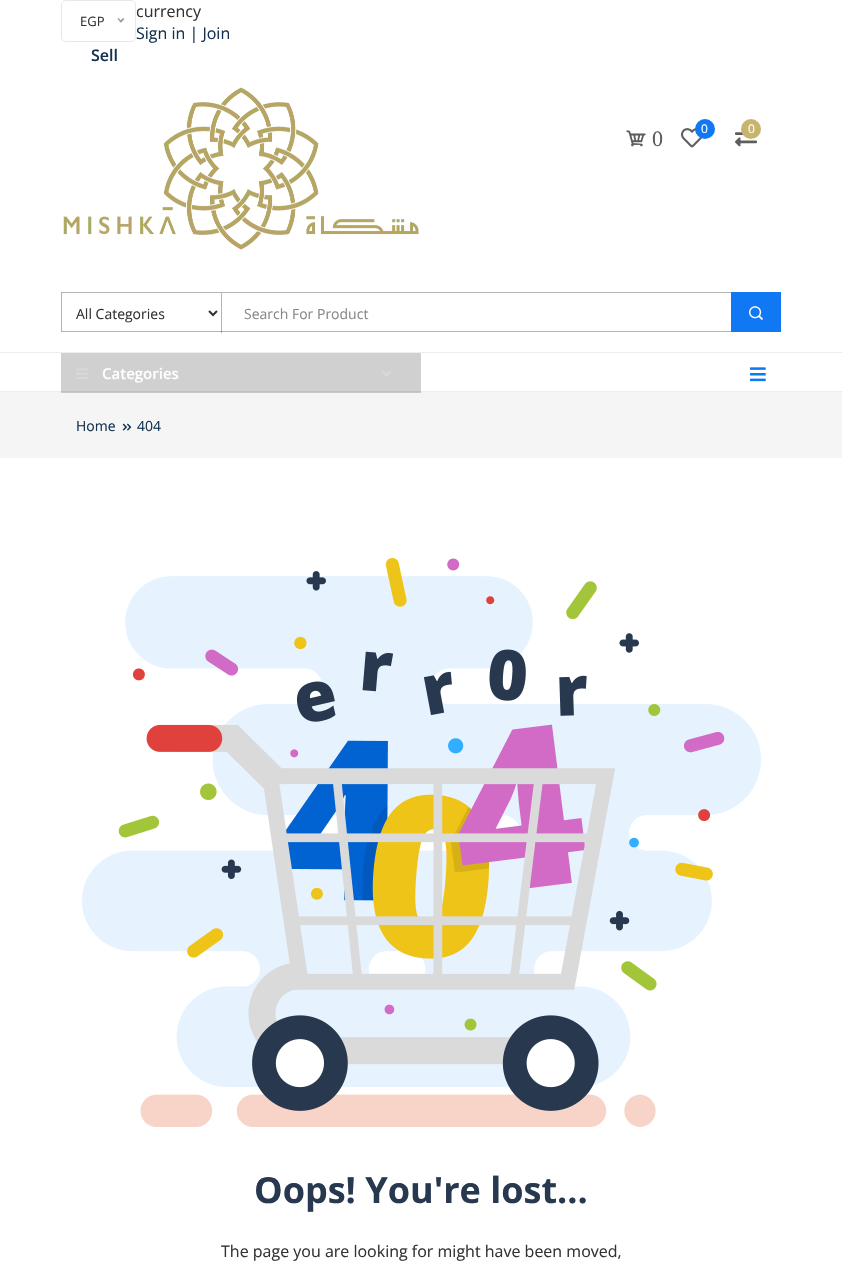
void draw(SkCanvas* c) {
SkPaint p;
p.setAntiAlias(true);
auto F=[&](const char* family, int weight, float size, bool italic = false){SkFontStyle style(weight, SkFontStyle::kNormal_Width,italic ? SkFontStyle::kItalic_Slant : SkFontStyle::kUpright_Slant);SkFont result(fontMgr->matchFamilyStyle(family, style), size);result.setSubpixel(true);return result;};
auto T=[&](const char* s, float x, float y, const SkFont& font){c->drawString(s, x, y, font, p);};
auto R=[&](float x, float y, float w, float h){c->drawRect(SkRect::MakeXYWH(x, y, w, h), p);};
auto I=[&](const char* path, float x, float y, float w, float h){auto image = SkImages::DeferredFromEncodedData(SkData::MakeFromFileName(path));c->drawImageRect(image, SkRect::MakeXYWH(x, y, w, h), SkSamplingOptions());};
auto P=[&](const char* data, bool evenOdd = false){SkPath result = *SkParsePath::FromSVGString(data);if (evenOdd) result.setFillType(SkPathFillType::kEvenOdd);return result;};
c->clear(0xffffffff);
p.setColor(0xffd0d0d0);
R(61,353,360,38);
p.setStroke(true);
p.setStrokeWidth(1);
p.setColor(0xffe8e8e8);
c->drawRoundRect(SkRect::MakeXYWH(61.5,.5,74,41),4.5,4.5,p);
auto f1 = F("Open Sans",400,13);
p.setStroke(false);
p.setColor(0xff333333);
T("EGP",80,26,f1);
p.setColor(0xff999999);
c->drawPath(P("M123 18l1.5 1l-3.5 3.5l-1.5-1z"),p);
c->drawPath(P("M118.5 18l3.5 3.5l-1 1l-3.5-3.5z"),p);
auto f2 = F("Open Sans",400,16);
p.setColor(0xff333333);
T("currency",136,17,f2);
p.setColor(0xff143250);
T("Sign in | Join",136,39,f2);
auto f3 = F("Open Sans",600,16);
T("Sell",91,61,f3);
I("1.png",63,87,356,163);
I("2.png",681,128,21,20);
p.setColor(0xff0f78f2);
c->drawCircle(705,129,10,p);
auto f4 = F("Open Sans",400,12);
p.setColor(0xffffffff);
T("0",701,133,f4);
I("3.png",735,132,22,15);
p.setColor(0xffc7b56f);
c->drawCircle(751,129,10,p);
p.setColor(0xffffffff);
T("0",748,133,f4);
I("4.png",626,130,20,17);
auto f5 = F("Liberation Serif",400,22);
p.setColor(0xff5d5d5d);
T("0",652,146,f5);
p.setStroke(true);
p.setColor(0xffb3b3b3);
c->drawRect(SkRect::MakeXYWH(61.5,292.5,719,39),p);
p.setStroke(false);
p.setColor(0x4d000000);
R(221,293,1,40);
p.setStroke(true);
p.setStrokeWidth(2);
p.setColor(0xff333333);
c->drawPath(P("M209 311l4 4l4-4"),p);
auto f6 = F("Open Sans",400,14);
p.setStroke(false);
T("All Categories",76,319,f6);
p.setColor(0xff888888);
T("Search For Product",244,319,f6);
p.setColor(0xff0f78f2);
R(731,292,50,40);
I("5.png",749,306,14,14);
p.setColor(0xffededed);
R(0,352,842,1);
R(0,391,842,1);
p.setColor(0xffc1c1c1);
R(61,391,360,1);
I("6.png",76,368,12,11);
auto f7 = F("Open Sans",600,15);
p.setColor(0xffffffff);
T("Categories",102,379,f7);
I("7.png",382,371,9,6);
I("8.png",750,367,16,15);
p.setColor(0xfff5f5f5);
R(0,392,842,66);
p.setColor(0xffc8c8c8);
R(61,392,360,1);
p.setColor(0xff143250);
T("Home",76,431,f6);
I("9.png",122,423,10,8);
T("404",137,431,f6);
I("10.png",82,558,679,569);
auto f8 = F("Open Sans",700,36);
p.setColor(0xff28384f);
T("Oops! You're lost...",254,1203,f8);
p.setColor(0xff333333);
T("The page you are looking for might have been moved,",221,1257,f2);
}
